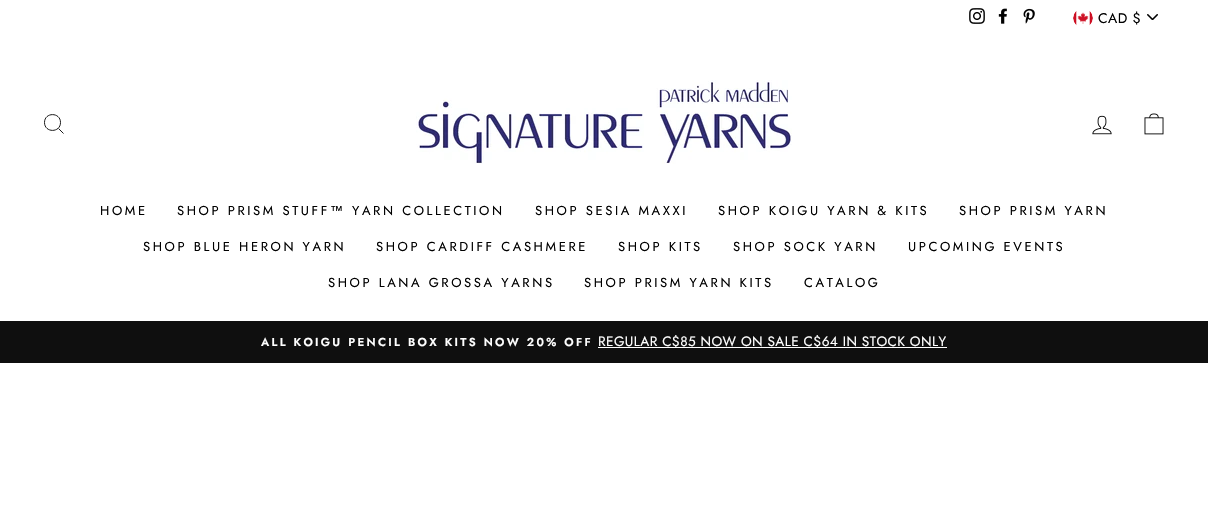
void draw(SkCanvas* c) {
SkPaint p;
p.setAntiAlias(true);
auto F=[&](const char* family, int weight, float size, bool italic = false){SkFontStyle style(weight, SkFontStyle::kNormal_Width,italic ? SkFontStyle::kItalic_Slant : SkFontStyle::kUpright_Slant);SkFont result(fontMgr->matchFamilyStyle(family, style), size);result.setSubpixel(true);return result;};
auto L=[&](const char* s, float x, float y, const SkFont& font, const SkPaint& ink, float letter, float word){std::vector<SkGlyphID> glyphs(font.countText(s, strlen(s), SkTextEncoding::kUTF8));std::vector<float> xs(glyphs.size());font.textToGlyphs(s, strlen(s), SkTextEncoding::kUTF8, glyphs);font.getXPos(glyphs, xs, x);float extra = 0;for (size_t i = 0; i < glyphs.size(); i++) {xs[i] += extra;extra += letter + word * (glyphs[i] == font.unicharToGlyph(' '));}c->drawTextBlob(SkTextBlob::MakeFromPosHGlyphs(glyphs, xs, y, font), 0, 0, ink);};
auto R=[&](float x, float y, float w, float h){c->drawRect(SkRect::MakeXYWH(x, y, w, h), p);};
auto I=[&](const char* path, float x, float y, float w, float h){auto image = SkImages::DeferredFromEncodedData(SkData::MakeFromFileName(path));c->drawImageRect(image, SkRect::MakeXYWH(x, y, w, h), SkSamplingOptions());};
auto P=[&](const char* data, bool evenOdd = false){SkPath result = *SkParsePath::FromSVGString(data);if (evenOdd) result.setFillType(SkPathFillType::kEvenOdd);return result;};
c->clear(0xffffffff);
I("1.png",969,8,16,16);
I("2.png",998,8,9,16);
I("3.png",1023,8,12,16);
I("4.png",1147,14,11,6);
I("5.png",1073,11,20,15);
auto f1 = F("Jost",400,14);
p.setColor(0xff000000);
L("CAD $",1098,23,f1,p,.5,0);
p.setStroke(true);
p.setStrokeWidth(.9);
c->drawPath(P("M60.5 122.5c0 10.5-16 10.5-16 0c0-10.5 16-10.5 16 0zm3 11l-5-5"),p);
I("6.png",416,80,376,84);
I("7.png",1092,115,20,20);
I("8.png",1144,113,20,22);
auto f2 = F("Jost",400,13);
p.setStroke(false);
L("HOME",100,215,f2,p,2.6,0);
L("SHOP PRISM STUFF",177,215,f2,p,2.6,0);
auto f3 = F("Liberation Sans",400,13);
L("™",330,215,f3,p,2.6,0);
L("YARN COLLECTION",352,215,f2,p,2.6,0);
L("SHOP SESIA MAXXI",535,215,f2,p,2.6,0);
L("SHOP KOIGU YARN & KITS",718,215,f2,p,2.6,0);
L("SHOP PRISM YARN",959,215,f2,p,2.6,0);
L("SHOP BLUE HERON YARN",143,251,f2,p,2.6,0);
L("SHOP CARDIFF CASHMERE",376,251,f2,p,2.6,0);
L("SHOP KITS",618,251,f2,p,2.6,0);
L("SHOP SOCK YARN",733,251,f2,p,2.6,0);
L("UPCOMING EVENTS",908,251,f2,p,2.6,0);
L("SHOP LANA GROSSA YARNS",328,287,f2,p,2.6,0);
L("SHOP PRISM YARN KITS",584,287,f2,p,2.6,0);
L("CATALOG",804,287,f2,p,2.6,0);
p.setColor(0xff0f0f0f);
R(0,321,1208,42);
auto f4 = F("Jost",600,11.55);
p.setColor(0xffffffff);
L("ALL KOIGU PENCIL BOX KITS NOW 20% OFF",261,346,f4,p,2.3,0);
R(598,347,349,1);
auto f5 = F("Jost",400,13.6);
L("REGULAR C$85 NOW ON SALE C$64 IN STOCK ONLY",598,346,f5,p,.4,0);
}
